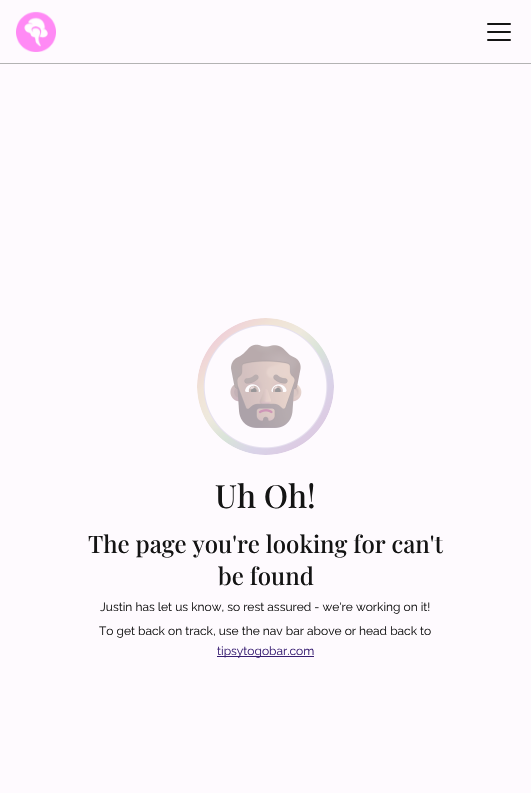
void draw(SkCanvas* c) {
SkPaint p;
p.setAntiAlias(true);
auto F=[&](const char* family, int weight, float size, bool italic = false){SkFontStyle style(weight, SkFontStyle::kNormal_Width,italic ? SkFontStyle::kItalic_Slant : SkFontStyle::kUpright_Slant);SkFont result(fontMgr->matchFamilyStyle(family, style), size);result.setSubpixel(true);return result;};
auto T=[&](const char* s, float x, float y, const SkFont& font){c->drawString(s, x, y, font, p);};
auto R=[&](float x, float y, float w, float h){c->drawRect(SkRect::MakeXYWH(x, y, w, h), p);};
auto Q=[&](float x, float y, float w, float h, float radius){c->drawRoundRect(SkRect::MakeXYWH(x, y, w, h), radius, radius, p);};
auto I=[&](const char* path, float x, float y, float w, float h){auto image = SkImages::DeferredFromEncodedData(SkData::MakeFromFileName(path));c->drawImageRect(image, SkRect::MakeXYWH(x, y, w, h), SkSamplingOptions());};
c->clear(0xfffefafe);
p.setColor(0xffb3b3b3);
R(0,63,531,1);
I("1.png",16,11,40,41);
p.setColor(0xff141414);
Q(487,23,24,2,1);
Q(487,31,24,2,1);
Q(487,39,24,2,1);
I("2.png",197,318,137,137);
auto f1 = F("Playfair Display",500,32);
T("Uh Oh!",215,508,f1);
auto f2 = F("Playfair Display",500,24);
T("The page you're looking for can't",88,553,f2);
T("be found",218,585,f2);
auto f3 = F("Raleway",100,12);
T("Justin has let us know, so rest assured - we're working on it!",100,611,f3);
T("To get back on track, use the nav bar above or head back to",99,635,f3);
p.setColor(0xff381e72);
R(217,656,97,1);
T("tipsytogobar.com",217,655,f3);
}
